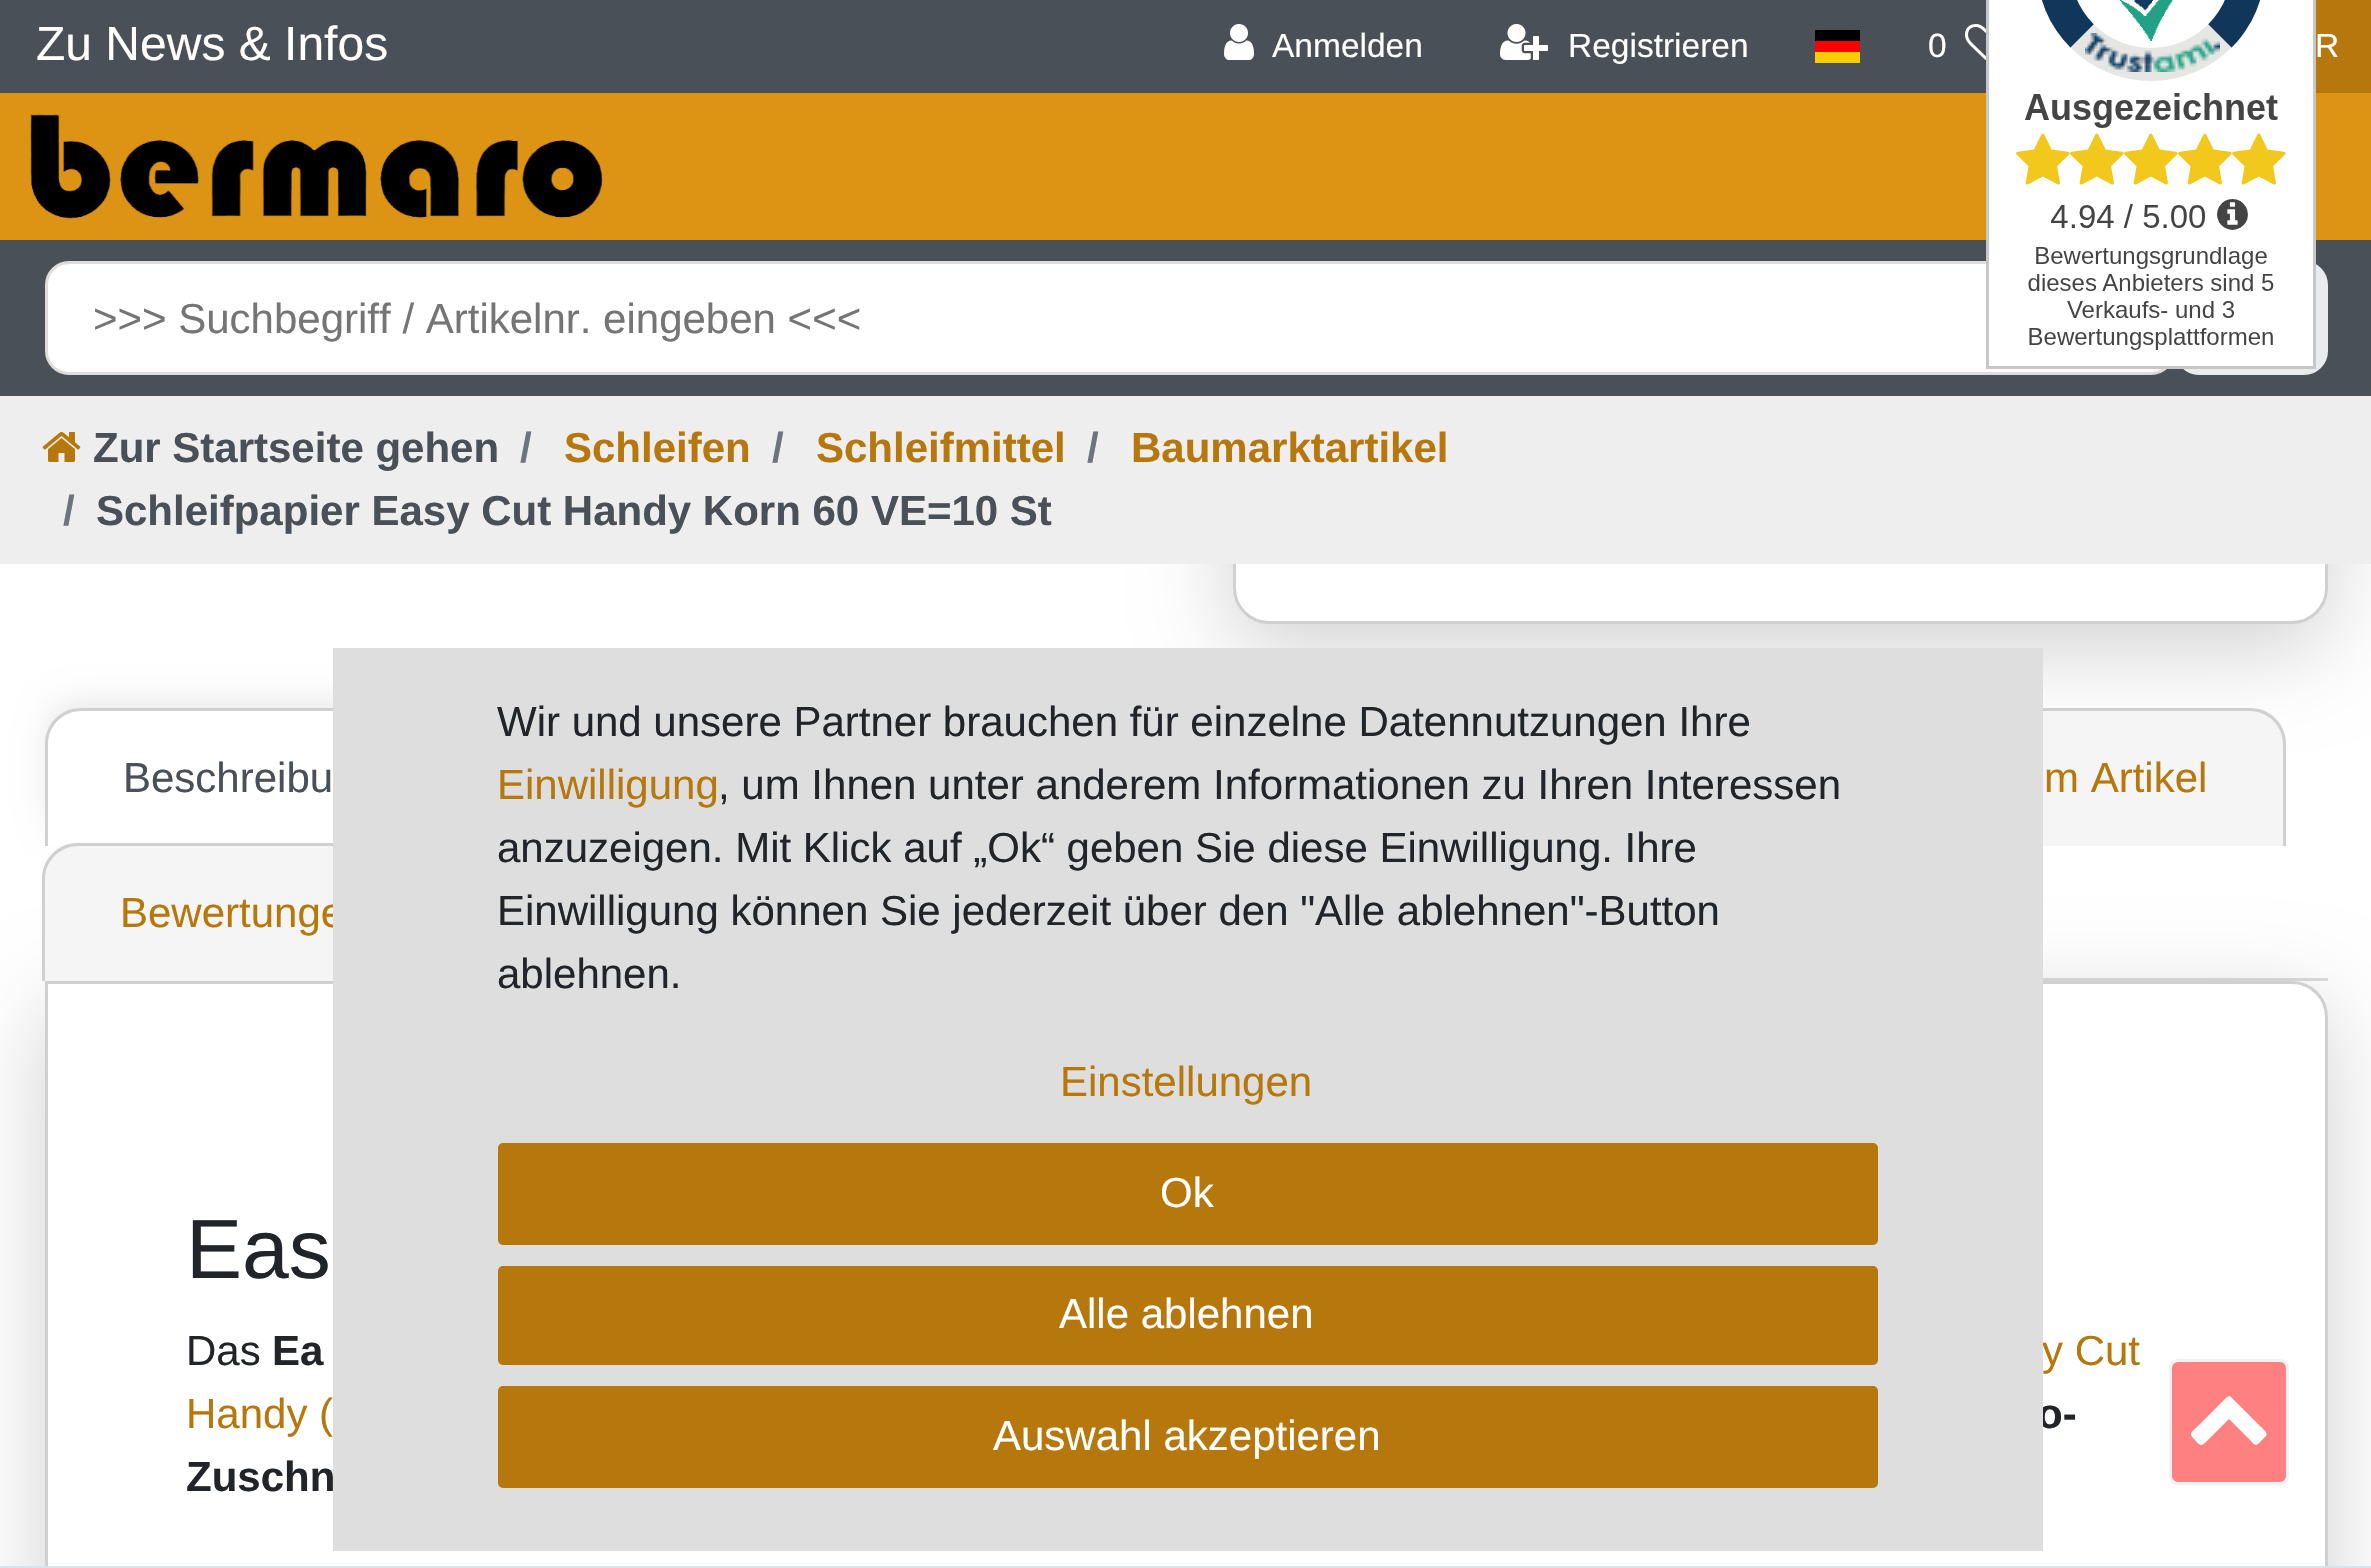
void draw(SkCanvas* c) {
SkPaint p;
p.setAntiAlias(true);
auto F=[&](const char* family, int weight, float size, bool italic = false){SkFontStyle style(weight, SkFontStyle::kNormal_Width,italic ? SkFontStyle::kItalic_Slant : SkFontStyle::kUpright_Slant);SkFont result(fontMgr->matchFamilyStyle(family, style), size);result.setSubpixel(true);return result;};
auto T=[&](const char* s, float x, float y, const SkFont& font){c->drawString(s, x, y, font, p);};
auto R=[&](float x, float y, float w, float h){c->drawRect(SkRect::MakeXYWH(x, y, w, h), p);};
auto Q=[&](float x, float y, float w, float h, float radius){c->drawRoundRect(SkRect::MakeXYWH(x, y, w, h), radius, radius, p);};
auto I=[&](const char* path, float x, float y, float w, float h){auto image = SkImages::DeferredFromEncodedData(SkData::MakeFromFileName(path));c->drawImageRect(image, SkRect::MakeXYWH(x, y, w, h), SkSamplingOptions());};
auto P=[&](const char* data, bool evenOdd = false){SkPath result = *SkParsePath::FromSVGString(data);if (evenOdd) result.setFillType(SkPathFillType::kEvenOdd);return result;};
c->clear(0xffffffff);
p.setColor(0x2e000000);
p.setMaskFilter(SkMaskFilter::MakeBlur(kNormal_SkBlurStyle, 45));
c->drawRoundRect(SkRect::MakeXYWH(1233,-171,1095,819),36,36,p);
p.setMaskFilter(nullptr);
p.setColor(0xffffffff);
c->drawRoundRect(SkRect::MakeXYWH(1234.5,-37.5,1092,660),34.5,34.5,p);
p.setStroke(true);
p.setStrokeWidth(3);
p.setColor(0xffd0d0d0);
c->drawRoundRect(SkRect::MakeXYWH(1234.5,-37.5,1092,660),34.5,34.5,p);
p.setStroke(false);
p.setColor(0xffdd9313);
R(0,93,2371,147);
p.setColor(0xff495057);
R(0,240,2371,156);
p.setColor(0xffffffff);
c->drawRoundRect(SkRect::MakeXYWH(46.5,262.5,2127,111),22.5,22.5,p);
p.setStroke(true);
p.setColor(0xffdddddd);
c->drawRoundRect(SkRect::MakeXYWH(46.5,262.5,2127,111),22.5,22.5,p);
p.setStroke(false);
p.setColor(0xffe9ecef);
Q(2175,261,153,114,24);
I("1.png",1986,0,330,369);
p.setColor(0xff495057);
R(0,0,1986,93);
auto f1 = F("Liberation Sans",400,48);
p.setColor(0xffffffff);
T("Zu News & Infos",36,60,f1);
I("2.png",1224,24,30,36);
auto f2 = F("Liberation Sans",400,33.5);
T("Anmelden",1272,57,f2);
I("3.png",1500,24,48,36);
T("Registrieren",1568,57,f2);
p.setColor(0xffffcc00);
R(1815,52,45,11);
p.setColor(0xff000000);
R(1815,30,45,11);
p.setColor(0xffff0000);
R(1815,41,45,11);
p.setColor(0xffffffff);
T("0",1928,57,f2);
I("4.png",1965,24,21,36);
p.setColor(0xffb6780c);
R(2316,0,55,93);
p.setColor(0xffffffff);
T("R",2315,57,f2);
I("5.png",30,114,573,105);
auto f3 = F("Liberation Sans",400,42);
p.setColor(0xff757575);
T(">>> Suchbegriff / Artikelnr. eingeben <<<",93,333,f3);
p.setColor(0xffeeeeee);
R(0,396,2371,168);
I("6.png",42,431,39,31);
auto f4 = F("Liberation Sans",700,42);
p.setColor(0xff495057);
T("Zur Startseite gehen",93,462,f4);
p.setColor(0xff6c757d);
T("/",520,462,f4);
p.setColor(0xffb6780c);
T("Schleifen",564,462,f4);
p.setColor(0xff6c757d);
T("/",772,462,f4);
p.setColor(0xffb6780c);
T("Schleifmittel",816,462,f4);
p.setColor(0xff6c757d);
T("/",1087,462,f4);
p.setColor(0xffb6780c);
T("Baumarktartikel",1131,462,f4);
p.setColor(0xff6c757d);
T("/",63,525,f4);
p.setColor(0xff495057);
T("Schleifpapier Easy Cut Handy Korn 60 VE=10 St",96,525,f4);
p.setColor(0xffdddddd);
R(2043,978,285,3);
p.setColor(0x2e000000);
p.setMaskFilter(SkMaskFilter::MakeBlur(kNormal_SkBlurStyle, 45));
c->drawRoundRect(SkRect::MakeXYWH(45,1005,2283,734),36,36,p);
p.setMaskFilter(nullptr);
p.setColor(0xffffffff);
c->drawPath(P("M46.5 982.5h2245.5c19 0 34.5 15.5 34.5 34.5v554c0 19-15.5 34.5-34.5 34.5h-2211c-19 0-34.5-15.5-34.5-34.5z"),p);
p.setStroke(true);
p.setColor(0xffd0d0d0);
c->drawPath(P("M46.5 982.5h2245.5c19 0 34.5 15.5 34.5 34.5v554c0 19-15.5 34.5-34.5 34.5h-2211c-19 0-34.5-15.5-34.5-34.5z"),p);
p.setStroke(false);
p.setColor(0xffdee2e6);
R(0,1566,2371,2);
p.setColor(0x14000000);
p.setMaskFilter(SkMaskFilter::MakeBlur(kNormal_SkBlurStyle, 15));
c->drawRoundRect(SkRect::MakeXYWH(45,699,414,138),36,36,p);
p.setMaskFilter(nullptr);
p.setColor(0xffffffff);
c->drawPath(P("M81 708h342c20 0 36 16 36 36v102h-414v-102c0-20 16-36 36-36z"),p);
p.setColor(0xffd0d0d0);
c->drawPath(P("M81 708h342c20 0 36 16 36 36v102h-414v-102c0-20 16-36 36-36zm0 3h342c18 0 33 15 33 33v102h-408v-102c0-18 15-33 33-33z",true),p);
p.setColor(0xfff5f5f5);
c->drawPath(P("M1812 708h438c20 0 36 16 36 36v102h-510v-102c0-20 16-36 36-36z"),p);
p.setColor(0xffd0d0d0);
c->drawPath(P("M1812 708h438c20 0 36 16 36 36v102h-510v-102c0-20 16-36 36-36zm0 3h438c18 0 33 15 33 33v102h-504v-102c0-18 15-33 33-33z",true),p);
p.setColor(0xfff5f5f5);
c->drawPath(P("M78 843h333c20 0 36 16 36 36v102h-405v-102c0-20 16-36 36-36z"),p);
p.setColor(0xffd0d0d0);
c->drawPath(P("M78 843h333c20 0 36 16 36 36v102h-405v-102c0-20 16-36 36-36zm0 3h333c18 0 33 15 33 33v102h-399v-102c0-18 15-33 33-33z",true),p);
p.setColor(0xffb6780c);
T("Bewertunge",120,927,f3);
T("y Cut",2042,1365,f3);
p.setColor(0xff212529);
T("o-",2037,1428,f4);
p.setColor(0xffdedede);
R(333,648,1710,903);
p.setColor(0xff212529);
T("Wir und unsere Partner brauchen für einzelne Datennutzungen Ihre",497,736,f3);
p.setColor(0xffb6780c);
T("Einwilligung",497,799,f3);
p.setColor(0xff212529);
T(", um Ihnen unter anderem Informationen zu Ihren Interessen",718,799,f3);
T("anzuzeigen. Mit Klick auf „Ok“ geben Sie diese Einwilligung. Ihre",497,862,f3);
T("Einwilligung können Sie jederzeit über den \"Alle ablehnen\"-Button",497,925,f3);
T("ablehnen.",497,988,f3);
p.setColor(0xffb6780c);
T("Einstellungen",1060,1096,f3);
c->drawRoundRect(SkRect::MakeXYWH(499.5,1144.5,1377,99),3.5,3.5,p);
p.setStroke(true);
c->drawRoundRect(SkRect::MakeXYWH(499.5,1144.5,1377,99),3.5,3.5,p);
p.setStroke(false);
p.setColor(0xffffffff);
T("Ok",1160,1207,f3);
p.setColor(0xffb6780c);
c->drawRoundRect(SkRect::MakeXYWH(499.5,1267.5,1377,96),3.5,3.5,p);
p.setStroke(true);
c->drawRoundRect(SkRect::MakeXYWH(499.5,1267.5,1377,96),3.5,3.5,p);
p.setStroke(false);
p.setColor(0xffffffff);
T("Alle ablehnen",1059,1328,f3);
p.setColor(0xffb6780c);
c->drawRoundRect(SkRect::MakeXYWH(499.5,1387.5,1377,99),3.5,3.5,p);
p.setStroke(true);
c->drawRoundRect(SkRect::MakeXYWH(499.5,1387.5,1377,99),3.5,3.5,p);
p.setStroke(false);
p.setColor(0xffffffff);
T("Auswahl akzeptieren",993,1450,f3);
p.setColor(0xffff8080);
c->drawRoundRect(SkRect::MakeXYWH(2170.5,1360.5,117,123),7.5,7.5,p);
p.setStroke(true);
p.setColor(0xffeff1f3);
c->drawRoundRect(SkRect::MakeXYWH(2170.5,1360.5,117,123),7.5,7.5,p);
p.setStroke(false);
p.setColor(0xffffffff);
c->drawPath(P("M2266 1436l-7 7c-4 4-5 1-9-3l-21-21l-21 21c-8 8-7 6-15-2c-5-5 0-7 5-12l23-23c9-9 7-9 16 0l23 23c1 1 9 7 6 10z"),p);
p.setColor(0xff495057);
T("Beschreibu",123,792,f3);
p.setColor(0xffb6780c);
T("m Artikel",2044,792,f3);
auto f5 = F("Liberation Sans",400,84);
p.setColor(0xff212529);
T("Eas",186,1278,f5);
T("Das",186,1365,f3);
T("Ea",272,1365,f4);
p.setColor(0xffb6780c);
T("Handy (",186,1428,f3);
p.setColor(0xff212529);
T("Zuschn",186,1491,f4);
}
